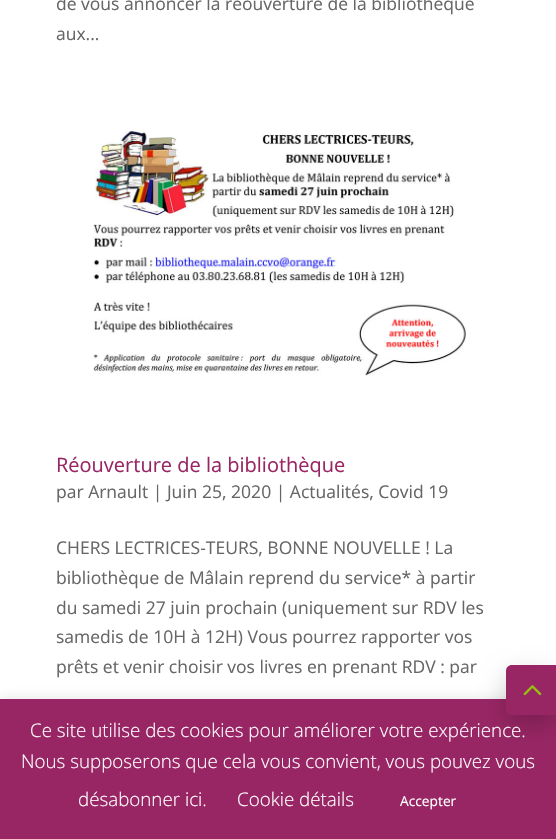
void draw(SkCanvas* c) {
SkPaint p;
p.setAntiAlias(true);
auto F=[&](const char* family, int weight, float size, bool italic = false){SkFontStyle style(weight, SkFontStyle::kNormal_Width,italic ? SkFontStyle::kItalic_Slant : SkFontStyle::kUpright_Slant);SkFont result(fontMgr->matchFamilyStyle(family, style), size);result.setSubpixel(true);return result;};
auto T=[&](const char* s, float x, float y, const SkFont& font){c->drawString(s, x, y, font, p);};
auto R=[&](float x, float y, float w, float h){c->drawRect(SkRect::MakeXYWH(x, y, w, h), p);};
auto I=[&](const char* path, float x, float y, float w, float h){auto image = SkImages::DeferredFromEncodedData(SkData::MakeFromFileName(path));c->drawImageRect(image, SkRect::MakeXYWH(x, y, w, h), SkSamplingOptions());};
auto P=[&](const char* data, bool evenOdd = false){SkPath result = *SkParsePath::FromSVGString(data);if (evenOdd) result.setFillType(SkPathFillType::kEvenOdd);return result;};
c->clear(0xffffffff);
auto f1 = F("Open Sans",400,17.5);
p.setColor(0xff666666);
T("de vous annoncer la réouverture de la bibliothèque",56,10,f1);
T("aux...",56,40,f1);
I("1.png",93,130,373,246);
auto f2 = F("Open Sans",400,20);
p.setColor(0xff982665);
T("Réouverture de la bibliothèque",56,472,f2);
p.setColor(0xff666666);
T("par Arnault | Juin 25, 2020 | Actualités, Covid 19",56,498,f1);
T("CHERS LECTRICES-TEURS, BONNE NOUVELLE ! La",56,554,f1);
T("bibliothèque de Mâlain reprend du service* à partir",56,584,f1);
T("du samedi 27 juin prochain (uniquement sur RDV les",56,614,f1);
T("samedis de 10H à 12H) Vous pourrez rapporter vos",56,643,f1);
T("prêts et venir choisir vos livres en prenant RDV : par",56,673,f1);
p.setColor(0x4dacabab);
p.setMaskFilter(SkMaskFilter::MakeBlur(kNormal_SkBlurStyle, 6));
c->drawRect(SkRect::MakeXYWH(0,698,556,141),p);
p.setMaskFilter(nullptr);
p.setColor(0xff982665);
R(0,699,556,140);
p.setColor(0x33000000);
p.setMaskFilter(SkMaskFilter::MakeBlur(kNormal_SkBlurStyle, 12.5));
c->drawRoundRect(SkRect::MakeXYWH(506,675,50,50),6,6,p);
p.setMaskFilter(nullptr);
p.setColor(0xff982665);
c->drawPath(P("M512 665h44v50h-44c-3.5 0-6-2.5-6-6v-38c0-3.5 2.5-6 6-6z"),p);
I("2.png",523,685,19,11);
auto f3 = F("Open Sans",300,18.75);
p.setColor(0xffffffff);
T("Ce site utilise des cookies pour améliorer votre expérience.",30,737,f3);
T("Nous supposerons que cela vous convient, vous pouvez vous",21,768,f3);
T("désabonner ici.",78,806,f3);
T("Cookie détails",237,806,f3);
auto f4 = F("Open Sans",400,13.75);
T("Accepter",400,806,f4);
}
